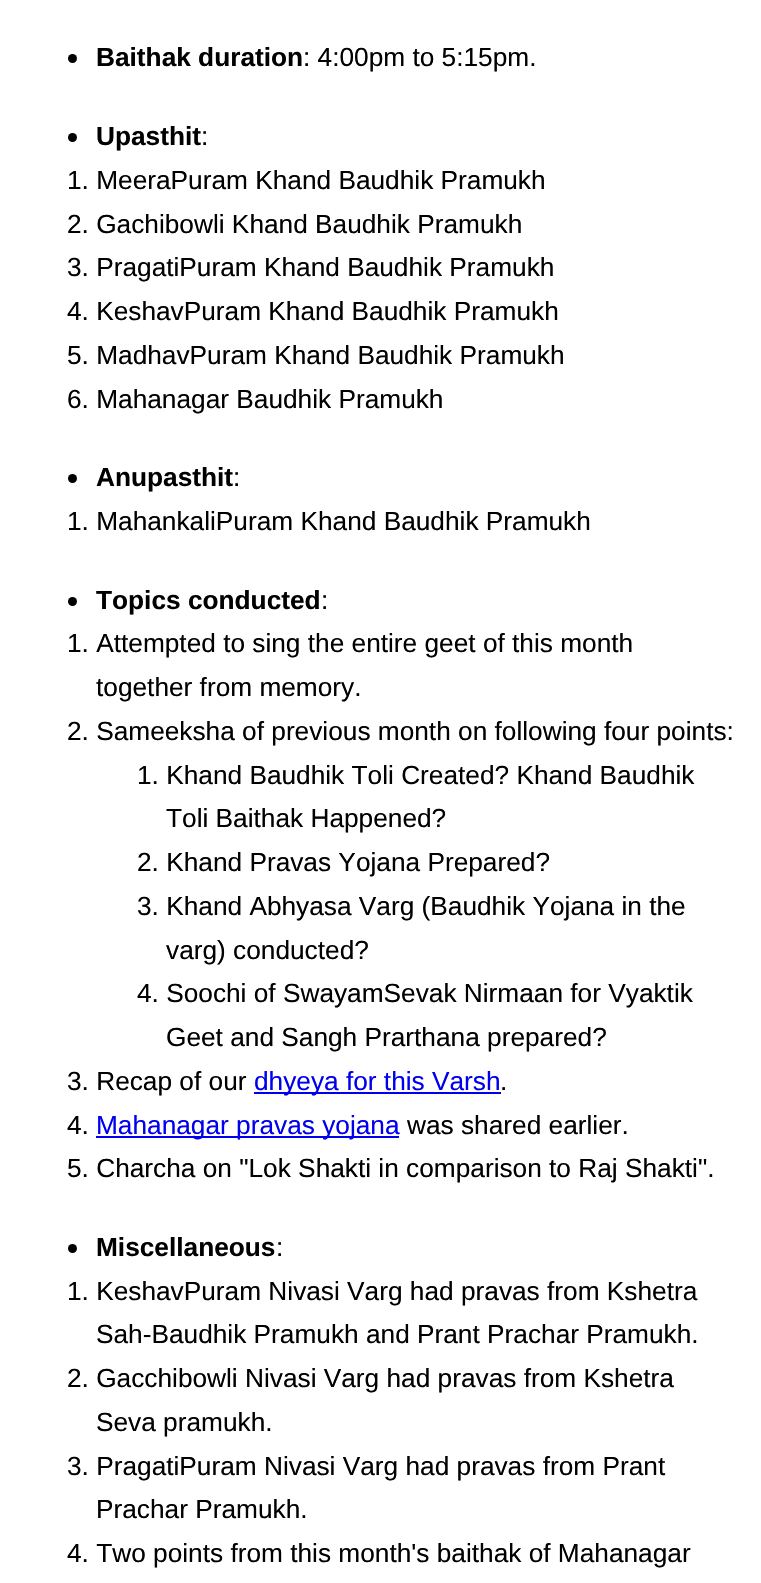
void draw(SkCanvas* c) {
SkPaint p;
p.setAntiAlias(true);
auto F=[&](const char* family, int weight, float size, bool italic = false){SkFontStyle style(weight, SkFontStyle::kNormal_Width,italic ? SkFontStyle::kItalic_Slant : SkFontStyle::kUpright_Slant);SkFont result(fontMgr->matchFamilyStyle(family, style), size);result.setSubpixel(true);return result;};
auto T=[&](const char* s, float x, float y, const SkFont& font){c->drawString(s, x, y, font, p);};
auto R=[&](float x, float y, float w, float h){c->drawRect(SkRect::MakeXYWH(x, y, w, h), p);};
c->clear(0xffffffff);
p.setColor(0xff000000);
c->drawCircle(72.5,58.5,4.5,p);
auto f1 = F("Liberation Sans",700,26.25);
T("Baithak duration",96,66,f1);
auto f2 = F("Liberation Sans",400,26.25);
T(": 4:00pm to 5:15pm.",303,66,f2);
c->drawCircle(72.5,137.5,4.5,p);
T("Upasthit",96,145,f1);
T(":",201,145,f2);
T("1. MeeraPuram Khand Baudhik Pramukh",67,189,f2);
T("2. Gachibowli Khand Baudhik Pramukh",67,233,f2);
T("3. PragatiPuram Khand Baudhik Pramukh",67,276,f2);
T("4. KeshavPuram Khand Baudhik Pramukh",67,320,f2);
T("5. MadhavPuram Khand Baudhik Pramukh",67,364,f2);
T("6. Mahanagar Baudhik Pramukh",67,408,f2);
c->drawCircle(72.5,478.5,4.5,p);
T("Anupasthit",96,486,f1);
T(":",233,486,f2);
T("1. MahankaliPuram Khand Baudhik Pramukh",67,530,f2);
c->drawCircle(72.5,601.5,4.5,p);
T("Topics conducted",96,609,f1);
T(":",321,609,f2);
T("1. Attempted to sing the entire geet of this month",67,652,f2);
T("together from memory.",96,696,f2);
T("2. Sameeksha of previous month on following four points:",67,740,f2);
T("1. Khand Baudhik Toli Created? Khand Baudhik",137,784,f2);
T("Toli Baithak Happened?",166,827,f2);
T("2. Khand Pravas Yojana Prepared?",137,871,f2);
T("3. Khand Abhyasa Varg (Baudhik Yojana in the",137,915,f2);
T("varg) conducted?",166,959,f2);
T("4. Soochi of SwayamSevak Nirmaan for Vyaktik",137,1002,f2);
T("Geet and Sangh Prarthana prepared?",166,1046,f2);
T("3. Recap of our",67,1090,f2);
p.setColor(0xff0000ee);
R(254,1092,247,2);
T("dhyeya for this Varsh",254,1090,f2);
p.setColor(0xff000000);
T(".",500,1090,f2);
T("4.",67,1134,f2);
p.setColor(0xff0000ee);
R(96,1136,303,2);
T("Mahanagar pravas yojana",96,1134,f2);
p.setColor(0xff000000);
T("was shared earlier.",407,1134,f2);
T("5. Charcha on \"Lok Shakti in comparison to Raj Shakti\".",67,1177,f2);
c->drawCircle(72.5,1248.5,4.5,p);
T("Miscellaneous",96,1256,f1);
T(":",276,1256,f2);
T("1. KeshavPuram Nivasi Varg had pravas from Kshetra",67,1300,f2);
T("Sah-Baudhik Pramukh and Prant Prachar Pramukh.",96,1343,f2);
T("2. Gacchibowli Nivasi Varg had pravas from Kshetra",67,1387,f2);
T("Seva pramukh.",96,1431,f2);
T("3. PragatiPuram Nivasi Varg had pravas from Prant",67,1475,f2);
T("Prachar Pramukh.",96,1518,f2);
T("4. Two points from this month's baithak of Mahanagar",67,1562,f2);
}
